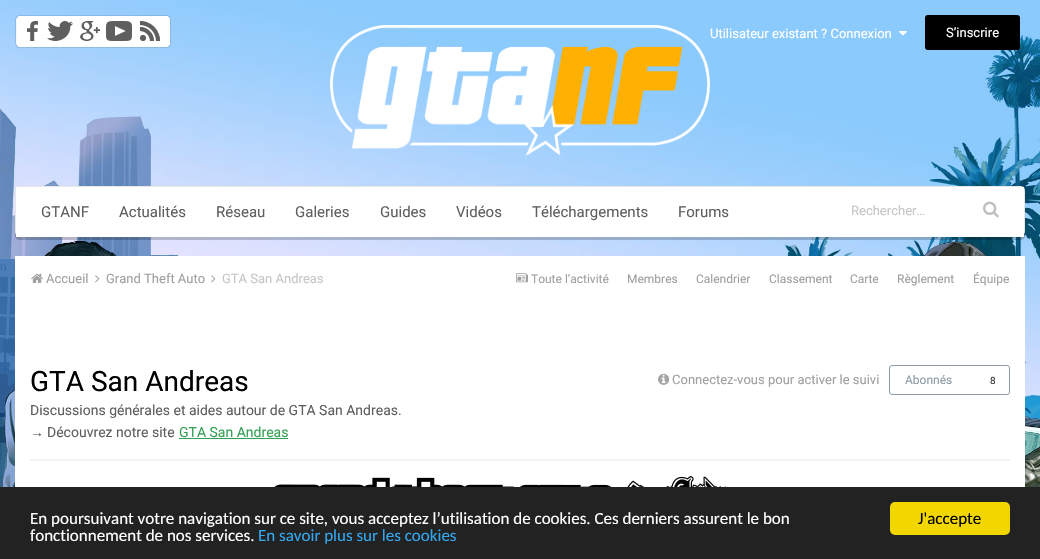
void draw(SkCanvas* c) {
SkPaint p;
p.setAntiAlias(true);
auto F=[&](const char* family, int weight, float size, bool italic = false){SkFontStyle style(weight, SkFontStyle::kNormal_Width,italic ? SkFontStyle::kItalic_Slant : SkFontStyle::kUpright_Slant);SkFont result(fontMgr->matchFamilyStyle(family, style), size);result.setSubpixel(true);return result;};
auto T=[&](const char* s, float x, float y, const SkFont& font){c->drawString(s, x, y, font, p);};
auto R=[&](float x, float y, float w, float h){c->drawRect(SkRect::MakeXYWH(x, y, w, h), p);};
auto Q=[&](float x, float y, float w, float h, float radius){c->drawRoundRect(SkRect::MakeXYWH(x, y, w, h), radius, radius, p);};
auto I=[&](const char* path, float x, float y, float w, float h){auto image = SkImages::DeferredFromEncodedData(SkData::MakeFromFileName(path));c->drawImageRect(image, SkRect::MakeXYWH(x, y, w, h), SkSamplingOptions());};
auto P=[&](const char* data, bool evenOdd = false){SkPath result = *SkParsePath::FromSVGString(data);if (evenOdd) result.setFillType(SkPathFillType::kEvenOdd);return result;};
c->clear(0xffffffff);
I("1.png",0,0,1040,487);
I("2.png",15,15,28,33);
I("3.png",43,15,33,33);
I("4.png",76,15,27,33);
I("5.png",103,15,33,33);
I("6.png",136,15,35,33);
I("7.png",330,25,380,131);
auto f1 = F("Roboto",400,13);
p.setColor(0xffffffff);
T("Utilisateur existant ? Connexion",710,38,f1);
I("8.png",899,31,8,5);
p.setColor(0xff000000);
Q(925,15,95,35,3);
p.setStroke(true);
p.setStrokeWidth(1);
p.setColor(0x1a000000);
c->drawRoundRect(SkRect::MakeXYWH(925.5,15.5,94,34),2.5,2.5,p);
p.setStroke(false);
p.setColor(0xffffffff);
T("S’inscrire",946,37,f1);
p.setColor(0x33000000);
c->drawPath(P("M15 232v4c0 2 2 4 4 4h1002c2 0 4-2 4-4v-4c0 2-2 4-4 4h-1002c-2 0-4-2-4-4z"),p);
p.setStroke(true);
p.setColor(0xffe7e7e7);
c->drawRoundRect(SkRect::MakeXYWH(15.5,186.5,1009,49),3.5,3.5,p);
p.setStroke(false);
p.setColor(0xffffffff);
R(16,187,1008,50);
auto f2 = F("Roboto",400,15);
p.setColor(0xff5f5f5f);
T("GTANF",41,217,f2);
T("Actualités",119,217,f2);
T("Réseau",216,217,f2);
T("Galeries",295,217,f2);
T("Guides",380,217,f2);
T("Vidéos",456,217,f2);
T("Téléchargements",532,217,f2);
T("Forums",678,217,f2);
p.setColor(0xffc6c6c6);
T("Rechercher…",851,215,f1);
I("9.png",983,201,16,17);
p.setColor(0xffffffff);
R(15,256,1010,231);
I("10.png",31,273,12,10);
p.setColor(0xff9f9f9f);
T("Accueil",46,283,f1);
I("11.png",95,275,5,8);
T("Grand Theft Auto",106,283,f1);
I("11.png",211,275,5,8);
p.setColor(0xffc6c6c6);
T("GTA San Andreas",222,283,f1);
I("12.png",516,273,12,10);
auto f3 = F("Roboto",400,12);
p.setColor(0xff9f9f9f);
T("Toute l’activité",531,283,f3);
T("Membres",627,283,f3);
T("Calendrier",696,283,f3);
T("Classement",769,283,f3);
T("Carte",850,283,f3);
T("Règlement",897,283,f3);
T("Équipe",973,283,f3);
auto f4 = F("Roboto",400,28);
p.setColor(0xff000000);
T("GTA San Andreas",30,391,f4);
I("13.png",658,373,12,12);
p.setColor(0xff9f9f9f);
T("Connectez-vous pour activer le suivi",672,384,f1);
p.setStroke(true);
p.setColor(0xff8d9aa6);
c->drawRoundRect(SkRect::MakeXYWH(889.5,365.5,120,29),2.5,2.5,p);
p.setStroke(false);
T("Abonnés",905,384,f3);
auto f5 = F("Roboto",400,10);
p.setColor(0xff333333);
T("8",990,384,f5);
auto f6 = F("Roboto",400,14);
p.setColor(0xff5f5f5f);
T("Discussions générales et aides autour de GTA San Andreas.",30,415,f6);
auto f7 = F("Liberation Sans",400,14);
T("→",30,437,f7);
T("Découvrez notre site",47,437,f6);
p.setColor(0xff35a156);
T("GTA San Andreas",179,437,f6);
R(179,438,109,1);
p.setColor(0xfff2f2f2);
R(30,459,980,2);
I("14.png",274,476,452,11);
p.setColor(0xff222222);
R(0,487,1040,72);
auto f8 = F("Carlito",400,17);
p.setColor(0xffffffff);
T("En poursuivant votre navigation sur ce site, vous acceptez l’utilisation de cookies. Ces derniers assurent le bon",30,524,f8);
T("fonctionnement de nos services.",30,541,f8);
p.setColor(0xff31a8f0);
T("En savoir plus sur les cookies",258,541,f8);
p.setColor(0xfff1d600);
Q(890,502,120,33,5);
p.setColor(0xff000000);
T("J'accepte",918,524,f8);
}
